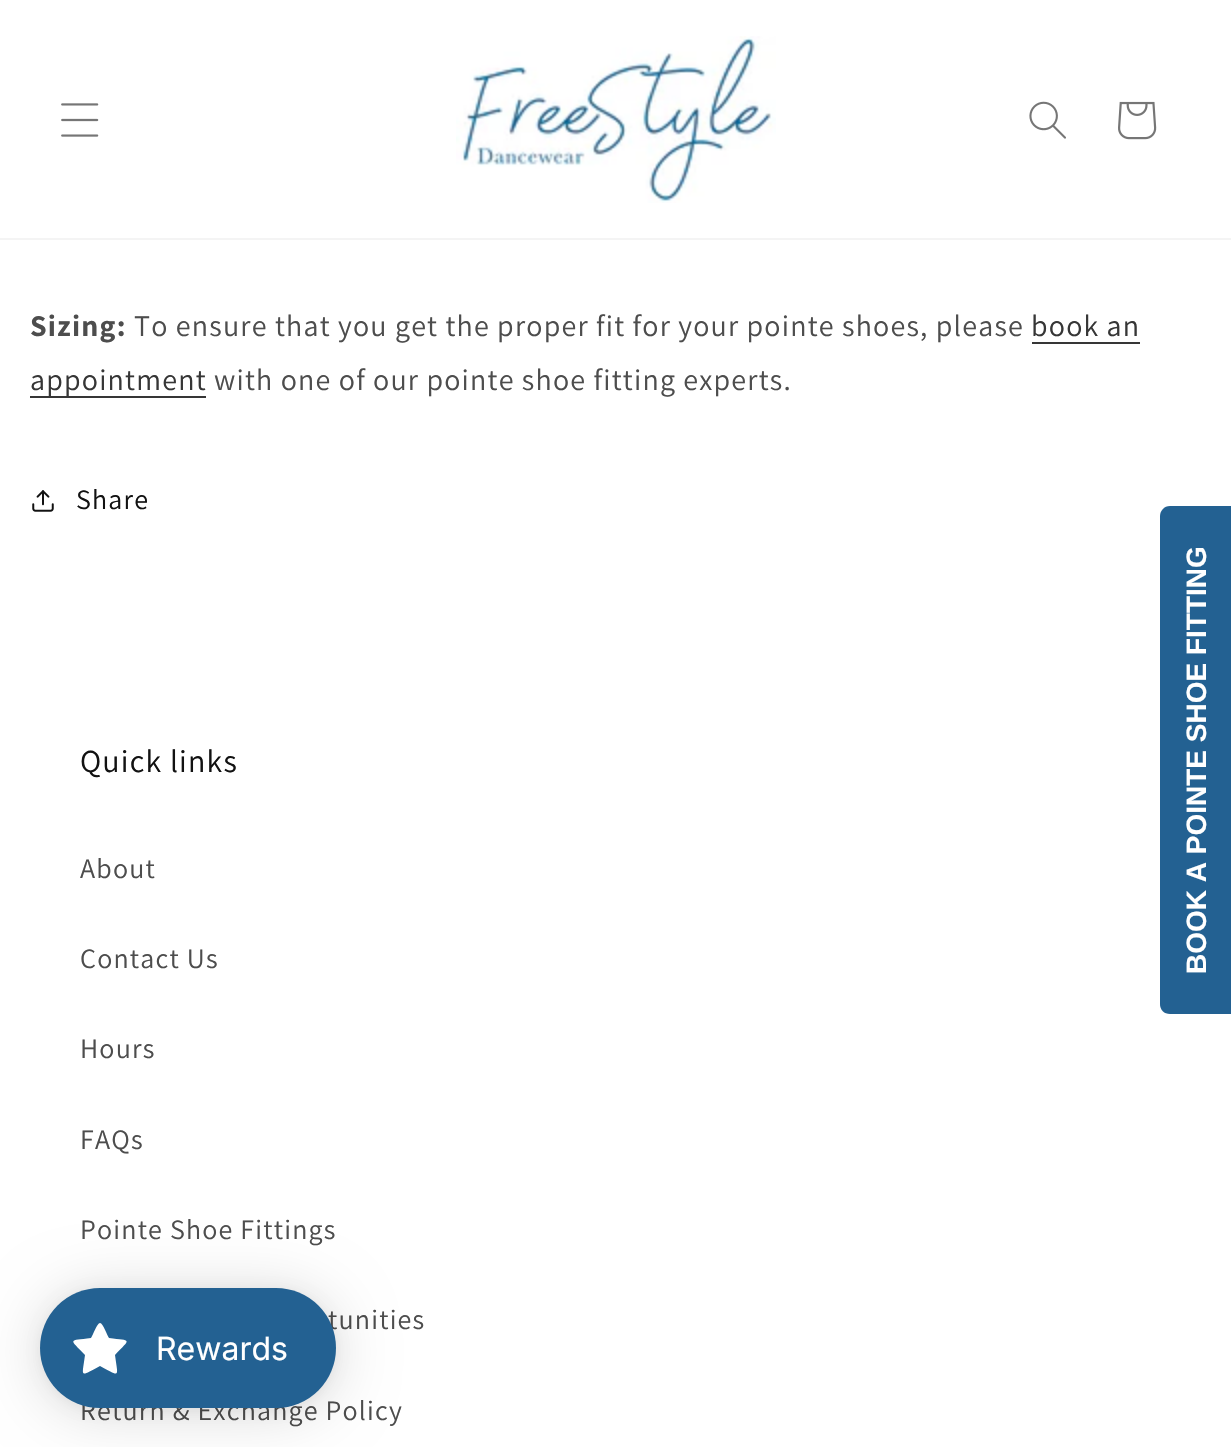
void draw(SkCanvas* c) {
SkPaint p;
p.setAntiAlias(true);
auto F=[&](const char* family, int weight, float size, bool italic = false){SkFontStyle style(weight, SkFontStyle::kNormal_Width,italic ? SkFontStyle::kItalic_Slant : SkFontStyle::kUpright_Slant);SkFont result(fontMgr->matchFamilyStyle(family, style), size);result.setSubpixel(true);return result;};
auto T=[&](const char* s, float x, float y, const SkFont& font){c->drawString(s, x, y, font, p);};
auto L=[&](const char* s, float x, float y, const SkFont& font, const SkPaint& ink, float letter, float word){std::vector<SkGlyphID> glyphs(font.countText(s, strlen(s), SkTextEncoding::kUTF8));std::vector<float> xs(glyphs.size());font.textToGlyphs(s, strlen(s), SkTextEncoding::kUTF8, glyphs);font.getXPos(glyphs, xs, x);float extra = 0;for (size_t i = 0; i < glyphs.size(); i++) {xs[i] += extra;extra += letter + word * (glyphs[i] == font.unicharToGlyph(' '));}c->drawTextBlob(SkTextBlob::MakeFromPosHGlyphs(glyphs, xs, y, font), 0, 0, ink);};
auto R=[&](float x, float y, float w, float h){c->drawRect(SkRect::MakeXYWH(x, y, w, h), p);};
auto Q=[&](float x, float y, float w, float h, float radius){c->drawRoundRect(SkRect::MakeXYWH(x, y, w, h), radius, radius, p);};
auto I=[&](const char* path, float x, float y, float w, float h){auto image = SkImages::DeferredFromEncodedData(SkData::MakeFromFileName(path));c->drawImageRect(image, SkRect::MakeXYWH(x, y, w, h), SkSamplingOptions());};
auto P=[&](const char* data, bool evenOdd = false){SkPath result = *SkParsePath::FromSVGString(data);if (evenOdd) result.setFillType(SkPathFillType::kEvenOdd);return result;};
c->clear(0xffffffff);
p.setColor(0xfff4f4f4);
R(0,238,1231,2);
I("1.png",61,103,38,34);
I("2.png",456,36,320,167);
I("3.png",1029,101,37,38);
I("4.png",1118,101,39,39);
auto f1 = F("Assistant",700,30);
p.setColor(0xff4d4d4d);
L("Sizing:",30,336,f1,p,1.2,0);
auto f2 = F("Assistant",400,30);
L("To ensure that you get the proper fit for your pointe shoes, please",134,336,f2,p,1.2,0);
p.setColor(0xff363636);
L("book an",1031,336,f2,p,1.2,0);
R(1032,342,108,2);
R(30,396,176,2);
L("appointment",30,390,f2,p,1.2,0);
p.setColor(0xff4d4d4d);
L("with one of our pointe shoe fitting experts.",214,390,f2,p,1.2,0);
I("5.png",32,490,22,22);
auto f3 = F("Assistant",400,28);
p.setColor(0xff121212);
L("Share",76,509,f3,p,1.2,0);
auto f4 = F("Assistant",400,32);
L("Quick links",80,772,f4,p,1.2,0);
p.setColor(0xff4d4d4d);
L("About",80,878,f3,p,1.2,0);
L("Contact Us",80,968,f3,p,1.2,0);
L("Hours",80,1058,f3,p,1.2,0);
L("FAQs",80,1149,f3,p,1.2,0);
L("Pointe Shoe Fittings",80,1239,f3,p,1.2,0);
L("tunities",328,1329,f3,p,1.2,0);
L("Return & Exchange Policy",80,1420,f3,p,1.2,0);
p.setColor(0xff236192);
c->drawPath(P("M1160 1004v-488c0-5 4-10 10-10h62v508h-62c-6 0-10-4-10-10z"),p);
auto f5 = F("Liberation Sans",700,28);
p.setColor(0xffffffff);
c->save();
c->rotate(-90,1206,974);
T("BOOK A POINTE SHOE FITTING",1206,974,f5);
c->restore();
p.setColor(0x26000000);
p.setMaskFilter(SkMaskFilter::MakeBlur(kNormal_SkBlurStyle, 30));
c->drawRoundRect(SkRect::MakeXYWH(40,1292,296,120),60,60,p);
p.setMaskFilter(nullptr);
p.setColor(0x0d000000);
p.setMaskFilter(SkMaskFilter::MakeBlur(kNormal_SkBlurStyle, 6));
c->drawRoundRect(SkRect::MakeXYWH(40,1290,296,120),60,60,p);
p.setMaskFilter(nullptr);
p.setColor(0xff236192);
Q(40,1288,296,120,60);
p.setColor(0xffffffff);
c->drawPath(P("M100 1323c-3 0-7 12-9 15c-23 3-22 0-6 17c-3 23-6 22 15 11c21 11 18 12 15-11c16-17 17-14-6-17c-2-3-6-15-9-15z"),p);
auto f6 = F("Inter",400,32);
T("Rewards",156,1360,f6);
}
